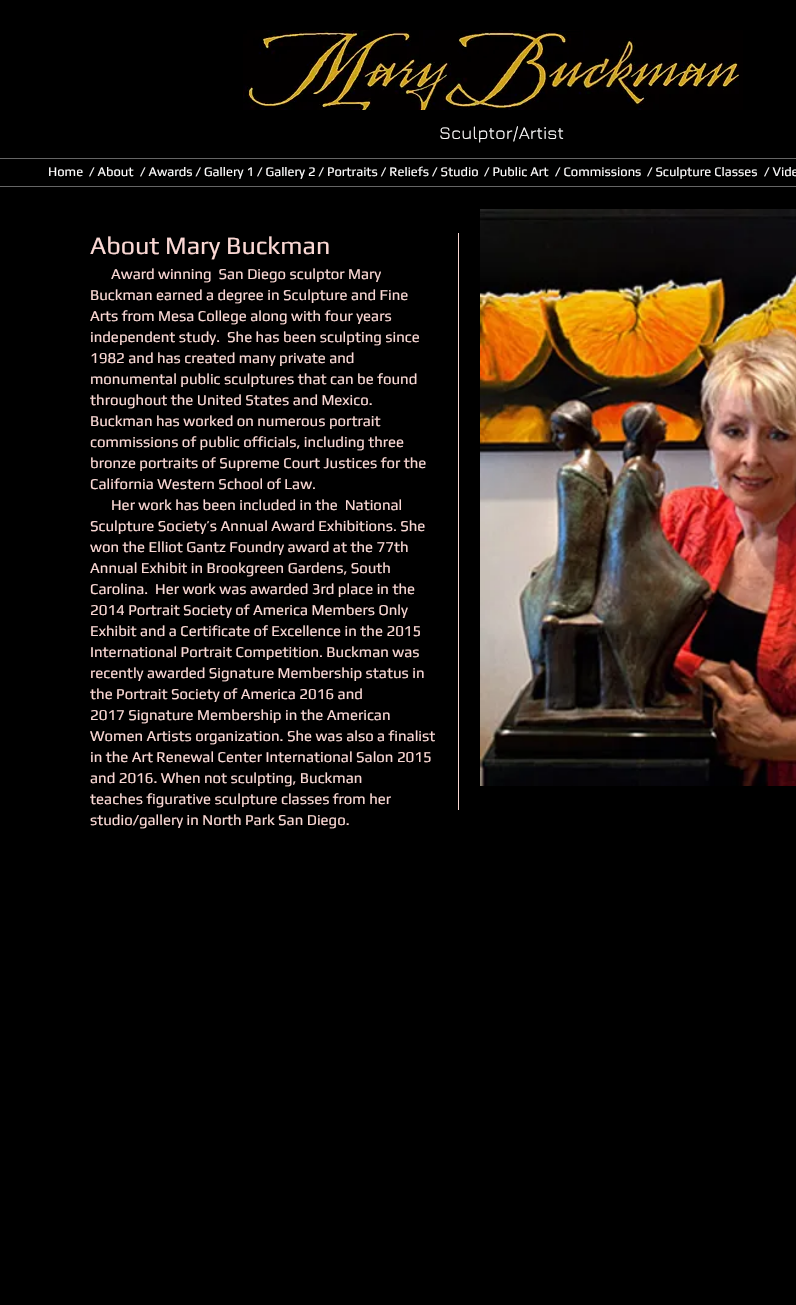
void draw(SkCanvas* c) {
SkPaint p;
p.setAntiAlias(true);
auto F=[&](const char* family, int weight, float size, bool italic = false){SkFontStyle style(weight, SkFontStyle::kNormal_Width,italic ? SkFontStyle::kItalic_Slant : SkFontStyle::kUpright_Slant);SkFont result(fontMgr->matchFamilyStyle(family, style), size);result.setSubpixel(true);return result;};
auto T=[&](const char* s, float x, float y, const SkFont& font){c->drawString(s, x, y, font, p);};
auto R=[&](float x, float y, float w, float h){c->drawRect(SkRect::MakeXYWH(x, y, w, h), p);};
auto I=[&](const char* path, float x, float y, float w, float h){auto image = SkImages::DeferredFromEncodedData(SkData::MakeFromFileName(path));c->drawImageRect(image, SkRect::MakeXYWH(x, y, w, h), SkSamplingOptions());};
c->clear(0xff000000);
I("1.png",243,30,500,80);
I("2.png",290,110,3,2);
auto f1 = F("Jura",400,18);
p.setColor(0xfffefdfd);
T("Sculptor/Artist",439,139,f1);
p.setColor(0xff656565);
R(0,158,796,1);
auto f2 = F("Play",400,13);
p.setColor(0xfffefdfd);
T("Home",48,176,f2);
T("/ About",89,176,f2);
T("/ Awards / Gallery 1 / Gallery 2 / Portraits / Reliefs / Studio",140,176,f2);
T("/ Public Art",484,176,f2);
T("/ Commissions",555,176,f2);
T("/ Sculpture Classes",647,176,f2);
T("/ Vide",764,176,f2);
p.setColor(0xff656565);
R(0,186,796,1);
auto f3 = F("Play",400,25);
p.setColor(0xfffbd8d4);
T("About Mary Buckman",90,254,f3);
auto f4 = F("Play",400,15);
T("Award winning  San Diego sculptor Mary",111,279,f4);
T("Buckman earned a degree in Sculpture and Fine",90,300,f4);
T("Arts from Mesa College along with four years",90,321,f4);
T("independent study.",90,342,f4);
T("She has been sculpting since",227,342,f4);
T("1982 and has created many private and",90,363,f4);
T("monumental public sculptures that can be found",90,384,f4);
T("throughout the United States and Mexico.",90,405,f4);
T("Buckman has worked on numerous portrait",90,426,f4);
T("commissions of public officials, including three",90,447,f4);
T("bronze portraits of Supreme Court Justices for the",90,468,f4);
T("California Western School of Law.",90,489,f4);
T("Her work has been included in the  National",111,510,f4);
T("Sculpture Society’s Annual Award Exhibitions. She",90,531,f4);
T("won the Elliot Gantz Foundry award at the 77th",90,552,f4);
T("Annual Exhibit in Brookgreen Gardens, South",90,573,f4);
T("Carolina.  Her work was awarded 3rd place in the",90,594,f4);
T("2014 Portrait Society of America Members Only",90,615,f4);
T("Exhibit and a Certificate of Excellence in the 2015",90,636,f4);
T("International Portrait Competition. Buckman was",90,657,f4);
T("recently awarded Signature Membership status in",90,678,f4);
T("the Portrait Society of America 2016 and",90,699,f4);
T("2017 Signature Membership in the American",90,720,f4);
T("Women Artists organization. She was also a finalist",90,741,f4);
T("in the Art Renewal Center International Salon 2015",90,762,f4);
T("and 2016. When not sculpting, Buckman",90,783,f4);
T("teaches figurative sculpture classes from her",90,804,f4);
T("studio/gallery in North Park San Diego.",90,825,f4);
R(458,233,1,577);
I("3.png",480,209,316,577);
}
